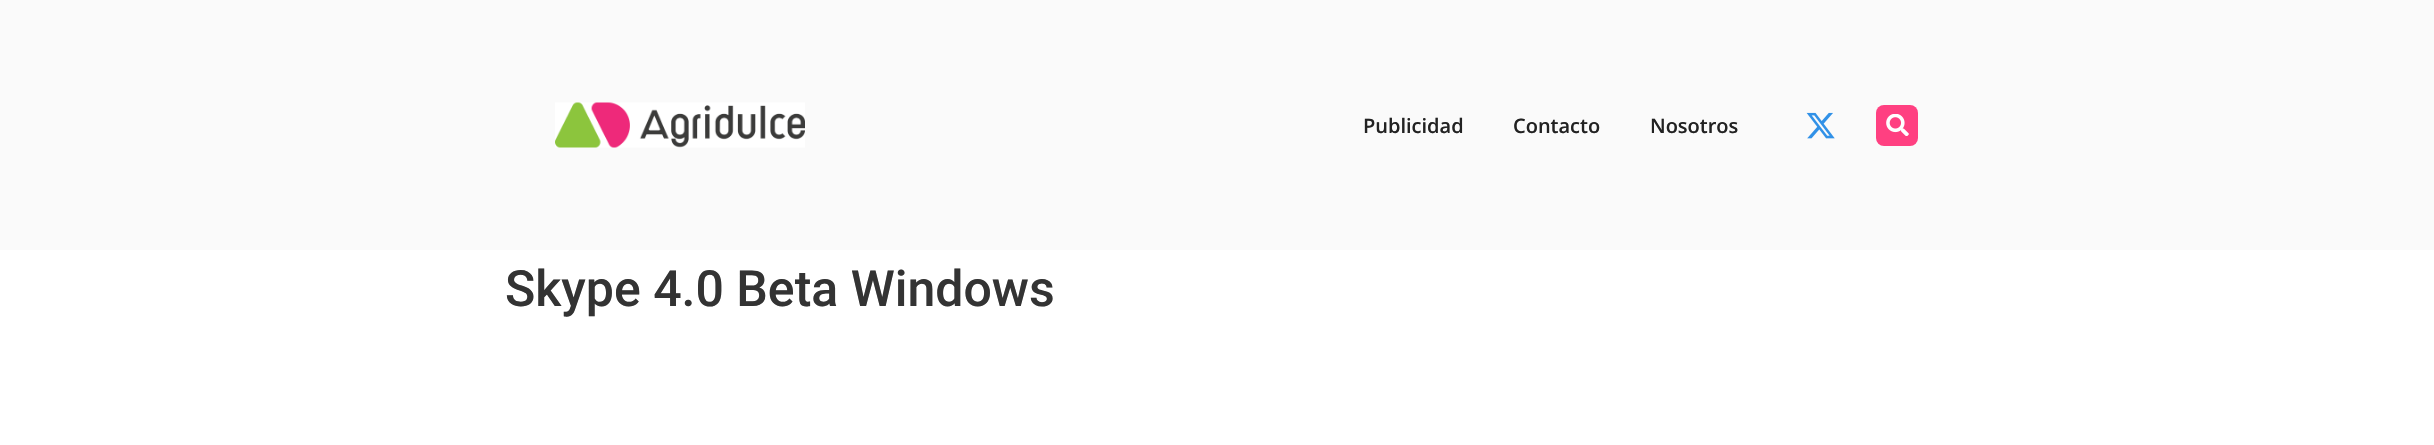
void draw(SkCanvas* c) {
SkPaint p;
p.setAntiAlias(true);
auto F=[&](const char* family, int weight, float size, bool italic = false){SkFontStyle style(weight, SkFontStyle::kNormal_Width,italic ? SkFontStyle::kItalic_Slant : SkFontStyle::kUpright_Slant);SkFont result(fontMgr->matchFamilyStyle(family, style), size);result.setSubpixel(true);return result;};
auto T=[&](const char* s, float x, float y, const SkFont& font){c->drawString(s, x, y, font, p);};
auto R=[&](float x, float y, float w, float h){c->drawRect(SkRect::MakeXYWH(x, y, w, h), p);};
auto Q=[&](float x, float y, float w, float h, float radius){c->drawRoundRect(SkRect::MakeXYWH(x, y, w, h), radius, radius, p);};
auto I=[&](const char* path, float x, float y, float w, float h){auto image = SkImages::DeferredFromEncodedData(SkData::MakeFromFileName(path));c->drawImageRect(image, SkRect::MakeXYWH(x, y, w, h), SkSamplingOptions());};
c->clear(0xffffffff);
p.setColor(0xfffafafa);
R(0,0,2434,250);
I("1.png",555,102,250,46);
auto f1 = F("Open Sans",600,20);
p.setColor(0xff222222);
T("Publicidad",1363,133,f1);
T("Contacto",1513,133,f1);
T("Nosotros",1650,133,f1);
I("2.png",1806,112,29,27);
p.setColor(0xffff4081);
Q(1876,105,42,41,8);
I("3.png",1886,114,23,22);
auto f2 = F("Roboto",500,50);
p.setColor(0xff333333);
T("Skype 4.0 Beta Windows",505,306,f2);
}
